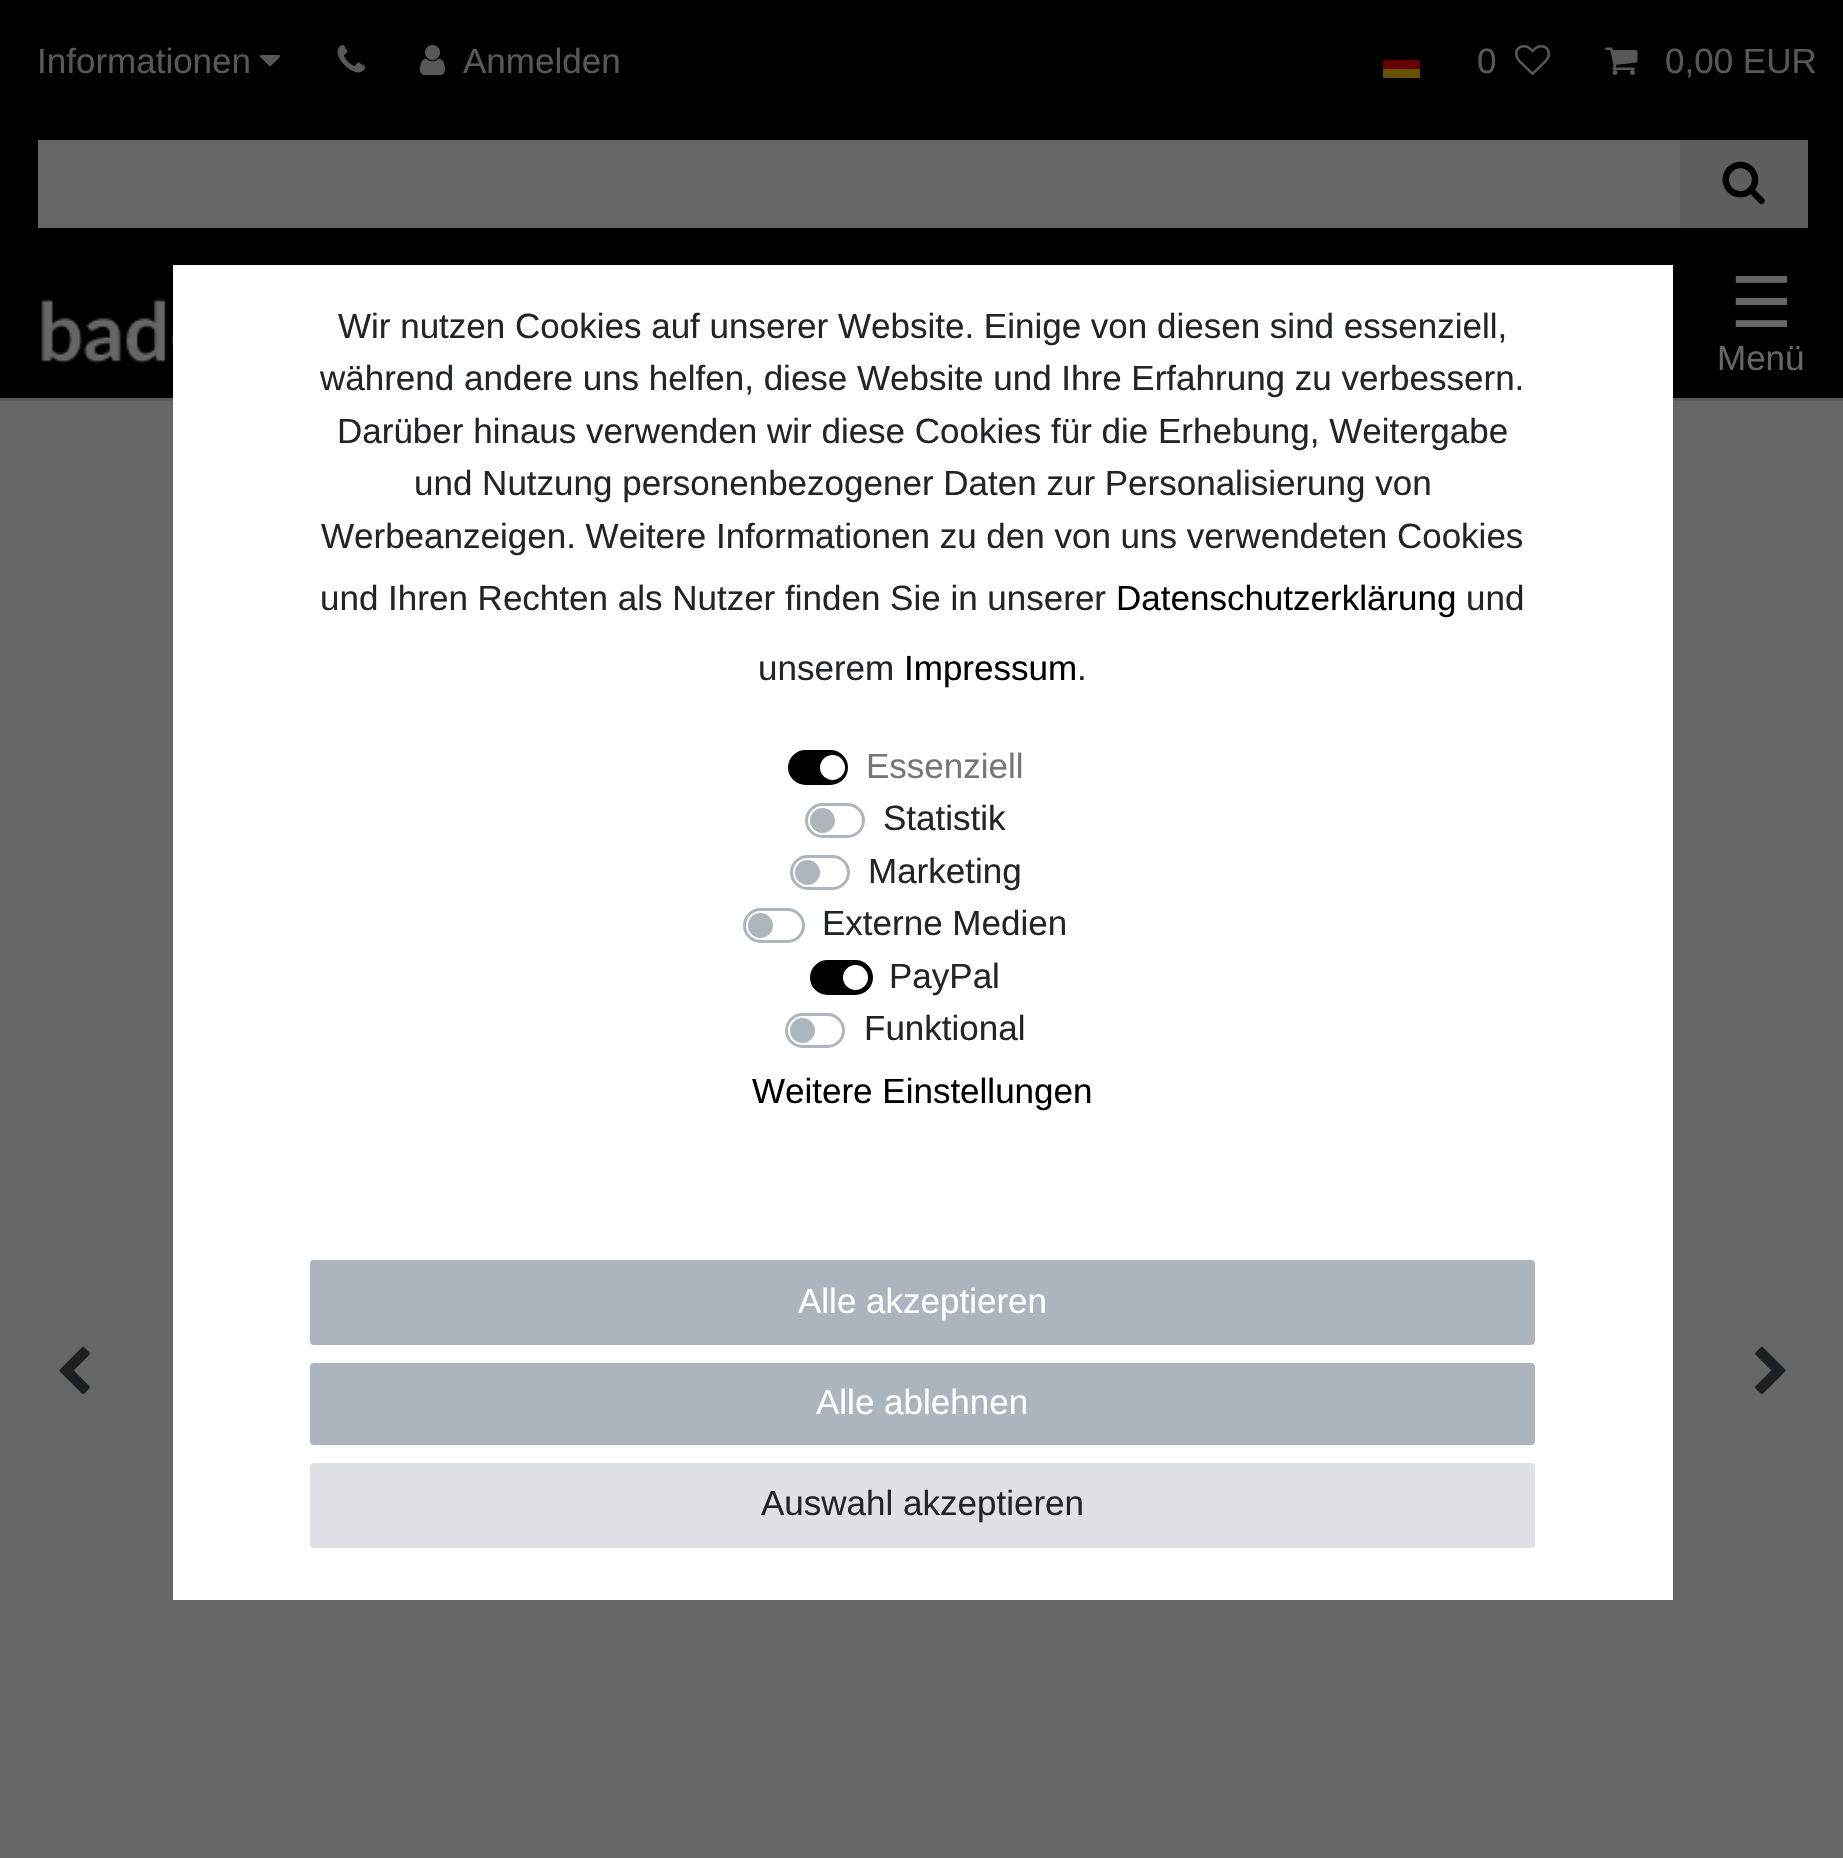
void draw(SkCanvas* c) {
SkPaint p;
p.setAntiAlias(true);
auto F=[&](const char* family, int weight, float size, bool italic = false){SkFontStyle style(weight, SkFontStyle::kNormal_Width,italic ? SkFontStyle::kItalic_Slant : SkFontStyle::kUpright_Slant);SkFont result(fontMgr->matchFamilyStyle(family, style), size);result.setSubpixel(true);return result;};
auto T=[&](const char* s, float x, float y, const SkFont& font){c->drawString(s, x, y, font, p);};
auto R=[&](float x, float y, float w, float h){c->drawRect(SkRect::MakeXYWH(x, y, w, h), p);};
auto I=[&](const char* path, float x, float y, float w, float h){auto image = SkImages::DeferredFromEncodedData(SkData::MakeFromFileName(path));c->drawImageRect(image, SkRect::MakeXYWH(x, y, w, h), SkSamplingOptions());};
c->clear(0xff000000);
auto f1 = F("Liberation Sans",400,35);
p.setColor(0xff585856);
T("Informationen",37,73,f1);
I("1.png",260,55,20,12);
I("2.png",337,45,28,28);
I("3.png",420,45,25,30);
T("Anmelden",463,73,f1);
p.setColor(0xff665200);
R(1383,69,37,9);
p.setColor(0xff660000);
R(1383,60,37,9);
p.setColor(0xff585856);
T("0",1477,73,f1);
I("4.png",1515,45,35,30);
I("5.png",1605,47,33,28);
T("0,00 EUR",1665,73,f1);
p.setColor(0xff666666);
R(38,140,1642,88);
p.setColor(0xff5d5e60);
R(1680,140,128,88);
I("6.png",1722,161,43,43);
p.setColor(0xff595a5c);
R(0,398,1843,3);
I("7.png",41,298,132,66);
auto f2 = F("DejaVu Sans",400,70);
p.setColor(0xff666666);
T("☰",1730,327,f2);
T("Menü",1717,370,f1);
R(0,401,1843,1457);
p.setColor(0xffffffff);
R(173,265,1500,1335);
p.setColor(0xff212529);
T("Wir nutzen Cookies auf unserer Website. Einige von diesen sind essenziell,",338,338,f1);
T("während andere uns helfen, diese Website und Ihre Erfahrung zu verbessern.",320,390,f1);
T("Darüber hinaus verwenden wir diese Cookies für die Erhebung, Weitergabe",337,443,f1);
T("und Nutzung personenbezogener Daten zur Personalisierung von",414,495,f1);
T("Werbeanzeigen. Weitere Informationen zu den von uns verwendeten Cookies",321,548,f1);
T("und Ihren Rechten als Nutzer finden Sie in unserer",320,610,f1);
p.setColor(0xff000000);
T("Datenschutzerklärung",1116,610,f1);
p.setColor(0xff212529);
T("und",1466,610,f1);
T("unserem",758,680,f1);
p.setColor(0xff000000);
T("Impressum",904,680,f1);
p.setColor(0xff212529);
T(".",1077,680,f1);
p.setColor(0xff000000);
c->drawRoundRect(SkRect::MakeXYWH(789.5,751.5,57,32),16,16,p);
p.setStroke(true);
p.setStrokeWidth(3);
c->drawRoundRect(SkRect::MakeXYWH(789.5,751.5,57,32),16,16,p);
p.setStroke(false);
p.setColor(0xff767676);
T("Essenziell",866,778,f1);
p.setColor(0xffffffff);
c->drawCircle(832.5,767.5,12.5,p);
p.setStroke(true);
p.setColor(0xffadb5bd);
c->drawRoundRect(SkRect::MakeXYWH(806.5,804.5,57,32),16,16,p);
p.setStroke(false);
p.setColor(0xff212529);
T("Statistik",883,830,f1);
p.setColor(0xffadb5bd);
c->drawCircle(822.5,820.5,12.5,p);
p.setStroke(true);
c->drawRoundRect(SkRect::MakeXYWH(791.5,856.5,57,32),16,16,p);
p.setStroke(false);
p.setColor(0xff212529);
T("Marketing",868,883,f1);
p.setColor(0xffadb5bd);
c->drawCircle(807.5,872.5,12.5,p);
p.setStroke(true);
c->drawRoundRect(SkRect::MakeXYWH(744.5,909.5,59,32),16,16,p);
p.setStroke(false);
p.setColor(0xff212529);
T("Externe Medien",822,935,f1);
p.setColor(0xffadb5bd);
c->drawCircle(760.5,925.5,12.5,p);
p.setColor(0xff000000);
c->drawRoundRect(SkRect::MakeXYWH(811.5,961.5,60,32),16,16,p);
p.setStroke(true);
c->drawRoundRect(SkRect::MakeXYWH(811.5,961.5,60,32),16,16,p);
p.setStroke(false);
p.setColor(0xff212529);
T("PayPal",889,988,f1);
p.setColor(0xffffffff);
c->drawCircle(855.5,977.5,12.5,p);
p.setStroke(true);
p.setColor(0xffadb5bd);
c->drawRoundRect(SkRect::MakeXYWH(786.5,1014.5,57,32),16,16,p);
p.setStroke(false);
p.setColor(0xff212529);
T("Funktional",864,1040,f1);
p.setColor(0xffadb5bd);
c->drawCircle(802.5,1030.5,12.5,p);
p.setColor(0xff000000);
T("Weitere Einstellungen",752,1103,f1);
p.setColor(0xffacb5bd);
c->drawRoundRect(SkRect::MakeXYWH(311.5,1261.5,1222,82),2.5,2.5,p);
p.setStroke(true);
c->drawRoundRect(SkRect::MakeXYWH(311.5,1261.5,1222,82),2.5,2.5,p);
p.setStroke(false);
p.setColor(0xffffffff);
T("Alle akzeptieren",798,1313,f1);
p.setColor(0xffacb5bd);
c->drawRoundRect(SkRect::MakeXYWH(311.5,1364.5,1222,79),2.5,2.5,p);
p.setStroke(true);
c->drawRoundRect(SkRect::MakeXYWH(311.5,1364.5,1222,79),2.5,2.5,p);
p.setStroke(false);
p.setColor(0xffffffff);
T("Alle ablehnen",816,1414,f1);
p.setColor(0xffdee2e6);
c->drawRoundRect(SkRect::MakeXYWH(311.5,1464.5,1222,82),2.5,2.5,p);
p.setStroke(true);
c->drawRoundRect(SkRect::MakeXYWH(311.5,1464.5,1222,82),2.5,2.5,p);
p.setStroke(false);
p.setColor(0xff212529);
T("Auswahl akzeptieren",761,1515,f1);
I("8.png",59,1346,31,49);
I("9.png",1755,1346,31,49);
}
